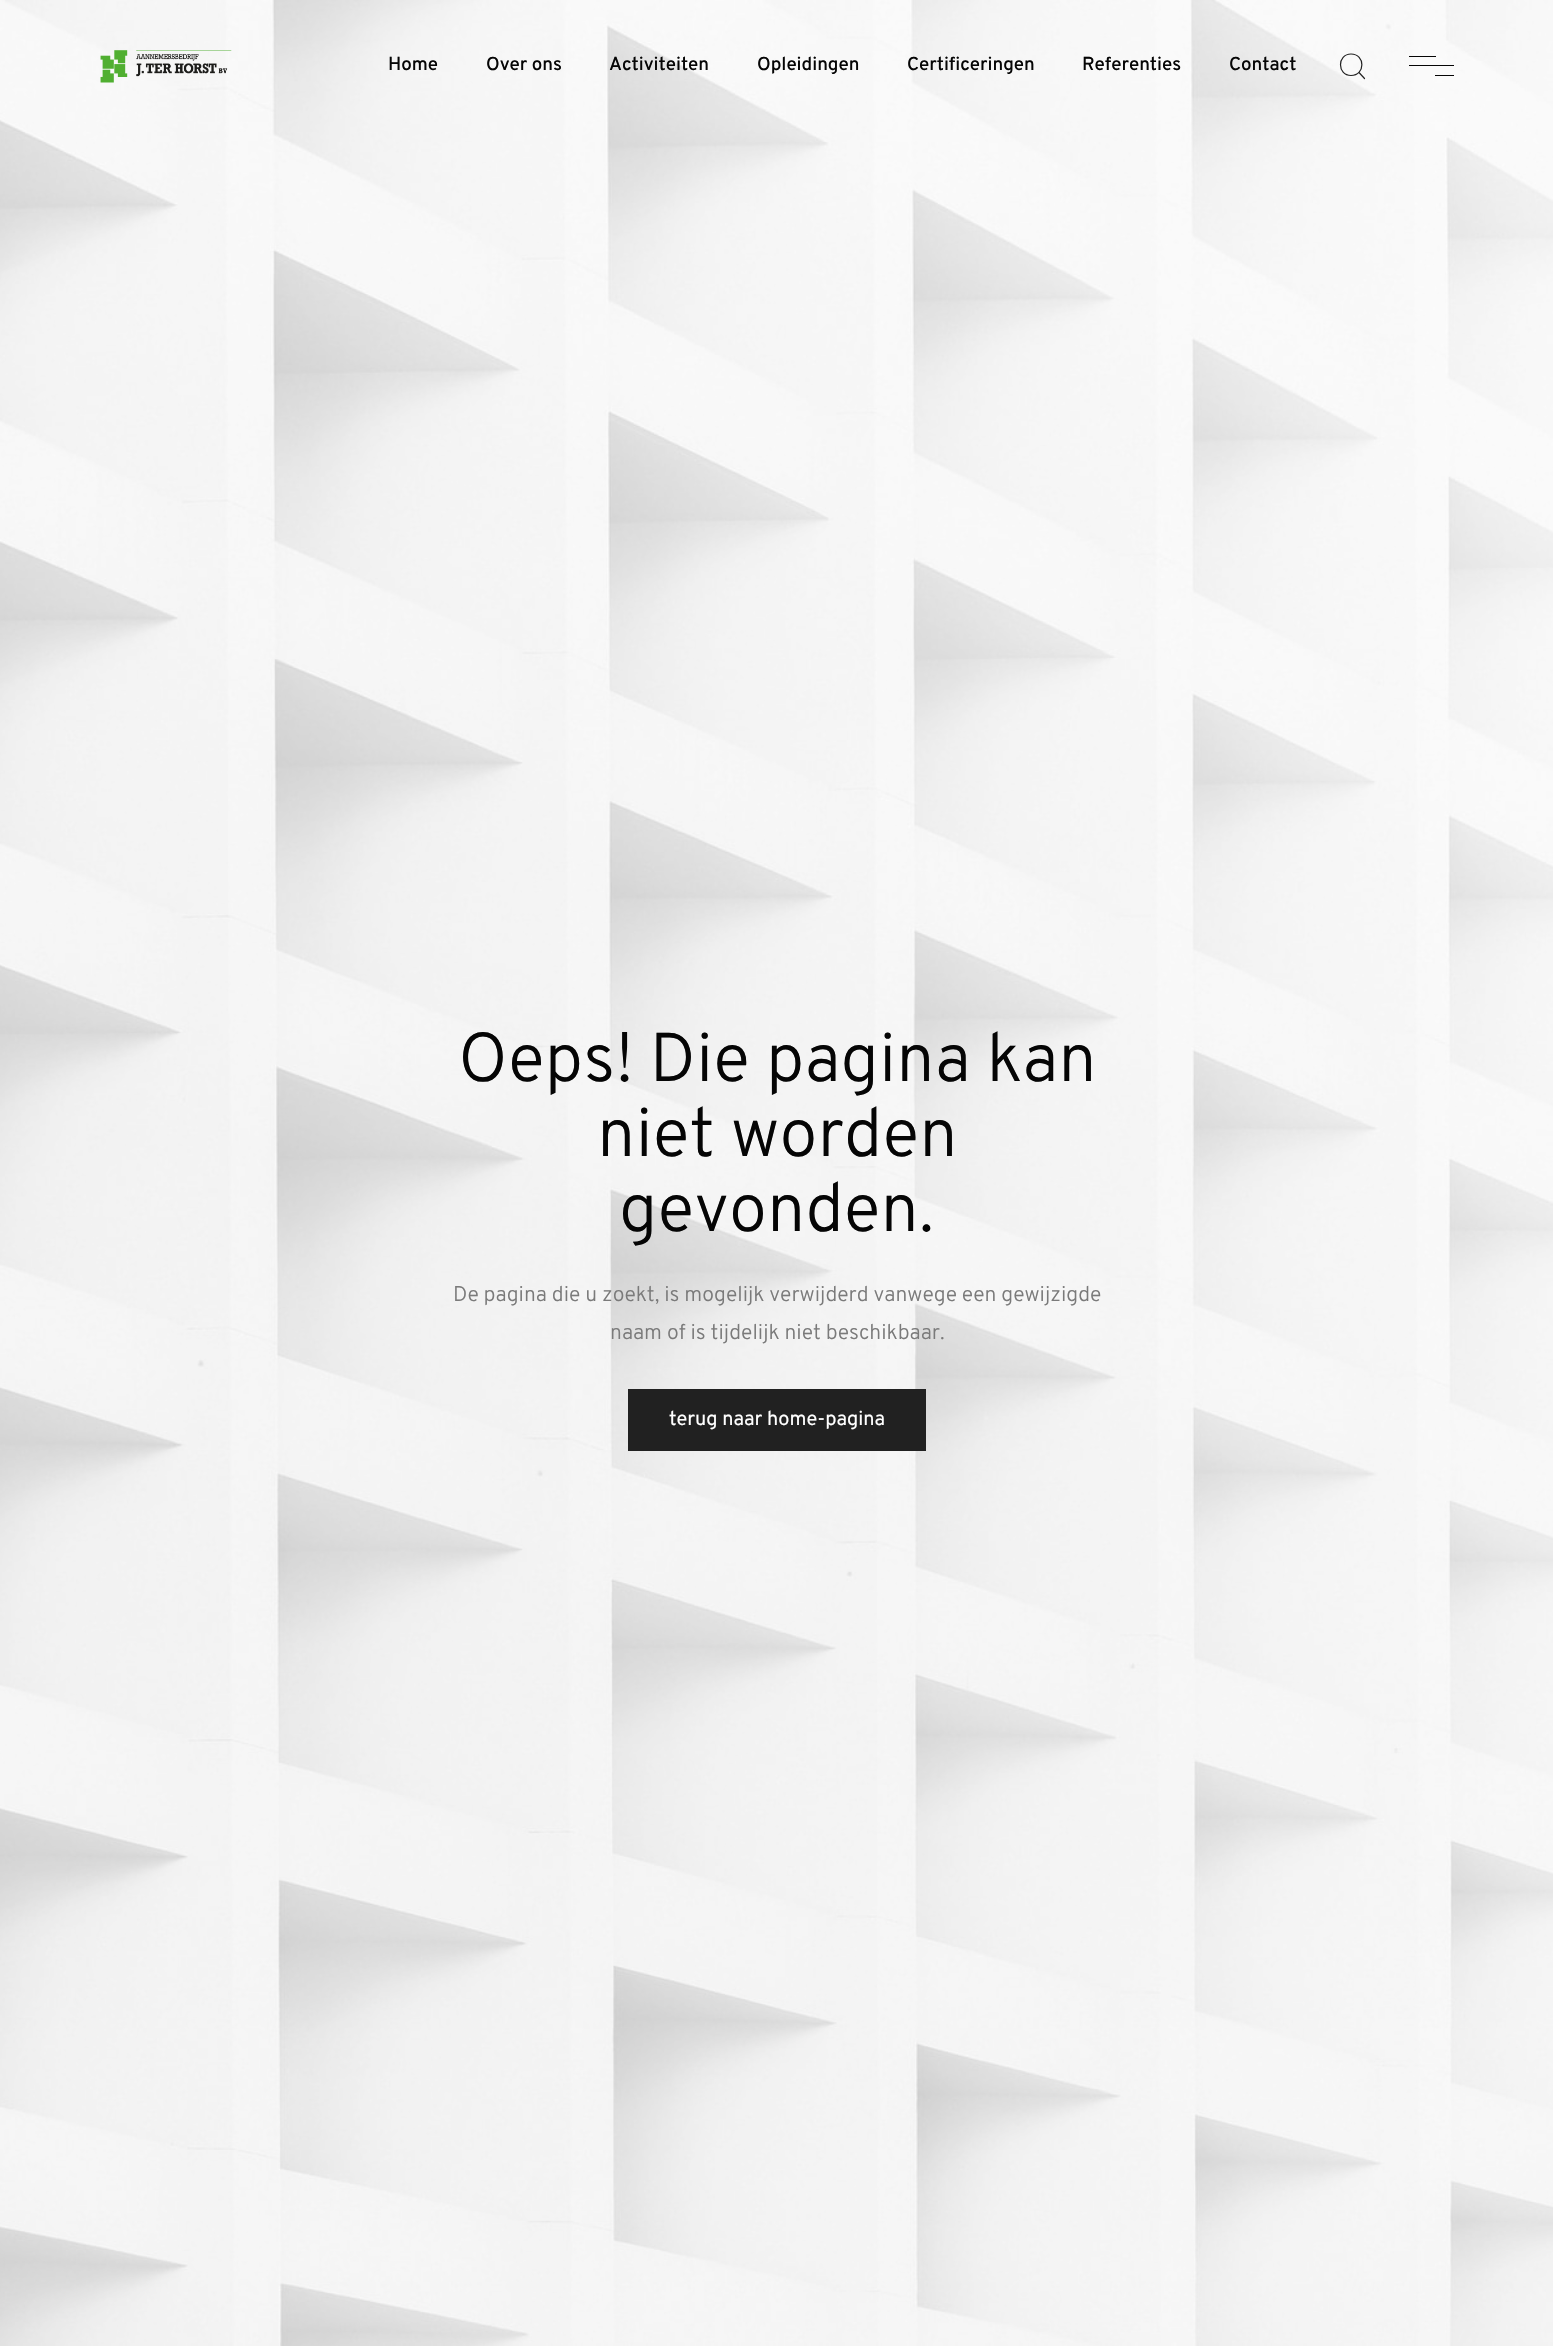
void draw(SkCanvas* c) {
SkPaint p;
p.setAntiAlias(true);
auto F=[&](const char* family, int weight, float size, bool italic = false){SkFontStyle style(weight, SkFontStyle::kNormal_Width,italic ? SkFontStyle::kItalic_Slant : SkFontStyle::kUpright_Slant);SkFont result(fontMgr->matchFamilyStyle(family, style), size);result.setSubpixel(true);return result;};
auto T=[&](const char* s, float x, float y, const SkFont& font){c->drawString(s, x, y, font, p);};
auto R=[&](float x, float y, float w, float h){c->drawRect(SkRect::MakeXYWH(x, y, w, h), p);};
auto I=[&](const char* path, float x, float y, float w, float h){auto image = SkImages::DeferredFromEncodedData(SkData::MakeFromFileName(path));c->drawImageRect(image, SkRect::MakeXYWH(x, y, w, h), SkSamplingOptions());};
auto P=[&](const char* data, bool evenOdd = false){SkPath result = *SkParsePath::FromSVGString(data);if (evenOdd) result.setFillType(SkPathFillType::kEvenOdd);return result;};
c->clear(0xffffffff);
I("2.png",0,0,1553,2346);
I("1.png",100,50,132,33);
auto f1 = F("Overpass",500,18.75);
p.setColor(0xff050505);
T("Home",388,70,f1);
T("Over ons",486,70,f1);
T("Activiteiten",609,70,f1);
T("Opleidingen",757,70,f1);
T("Certificeringen",907,70,f1);
T("Referenties",1082,70,f1);
T("Contact",1229,70,f1);
p.setStroke(true);
p.setStrokeWidth(1.2);
p.setStrokeCap(SkPaint::kRound_Cap);
p.setStrokeJoin(SkPaint::kRound_Join);
p.setColor(0xff212121);
c->drawPath(P("M1351 75.5c14.5 0 14.5-21.5 0-21.5c-14 0-14 21.5 0 21.5zm13.5 3l-5.5-6"),p);
p.setStroke(false);
p.setColor(0xff050505);
R(1409,56,27,1);
R(1409,65,45,1);
R(1435,75,19,1);
auto f2 = F("Overpass",300,68.75);
T("Oeps! Die pagina kan",458,1081,f2);
T("niet worden",597,1156,f2);
T("gevonden.",619,1231,f2);
auto f3 = F("Overpass",300,21.25);
p.setColor(0xff7a7a7a);
T("De pagina die u zoekt, is mogelijk verwijderd vanwege een gewijzigde",453,1301,f3);
T("naam of is tijdelijk niet beschikbaar.",610,1339,f3);
p.setColor(0xff212121);
R(628,1389,298,62);
auto f4 = F("Overpass",400,20);
p.setColor(0xffffffff);
T("terug naar home-pagina",669,1425,f4);
}
